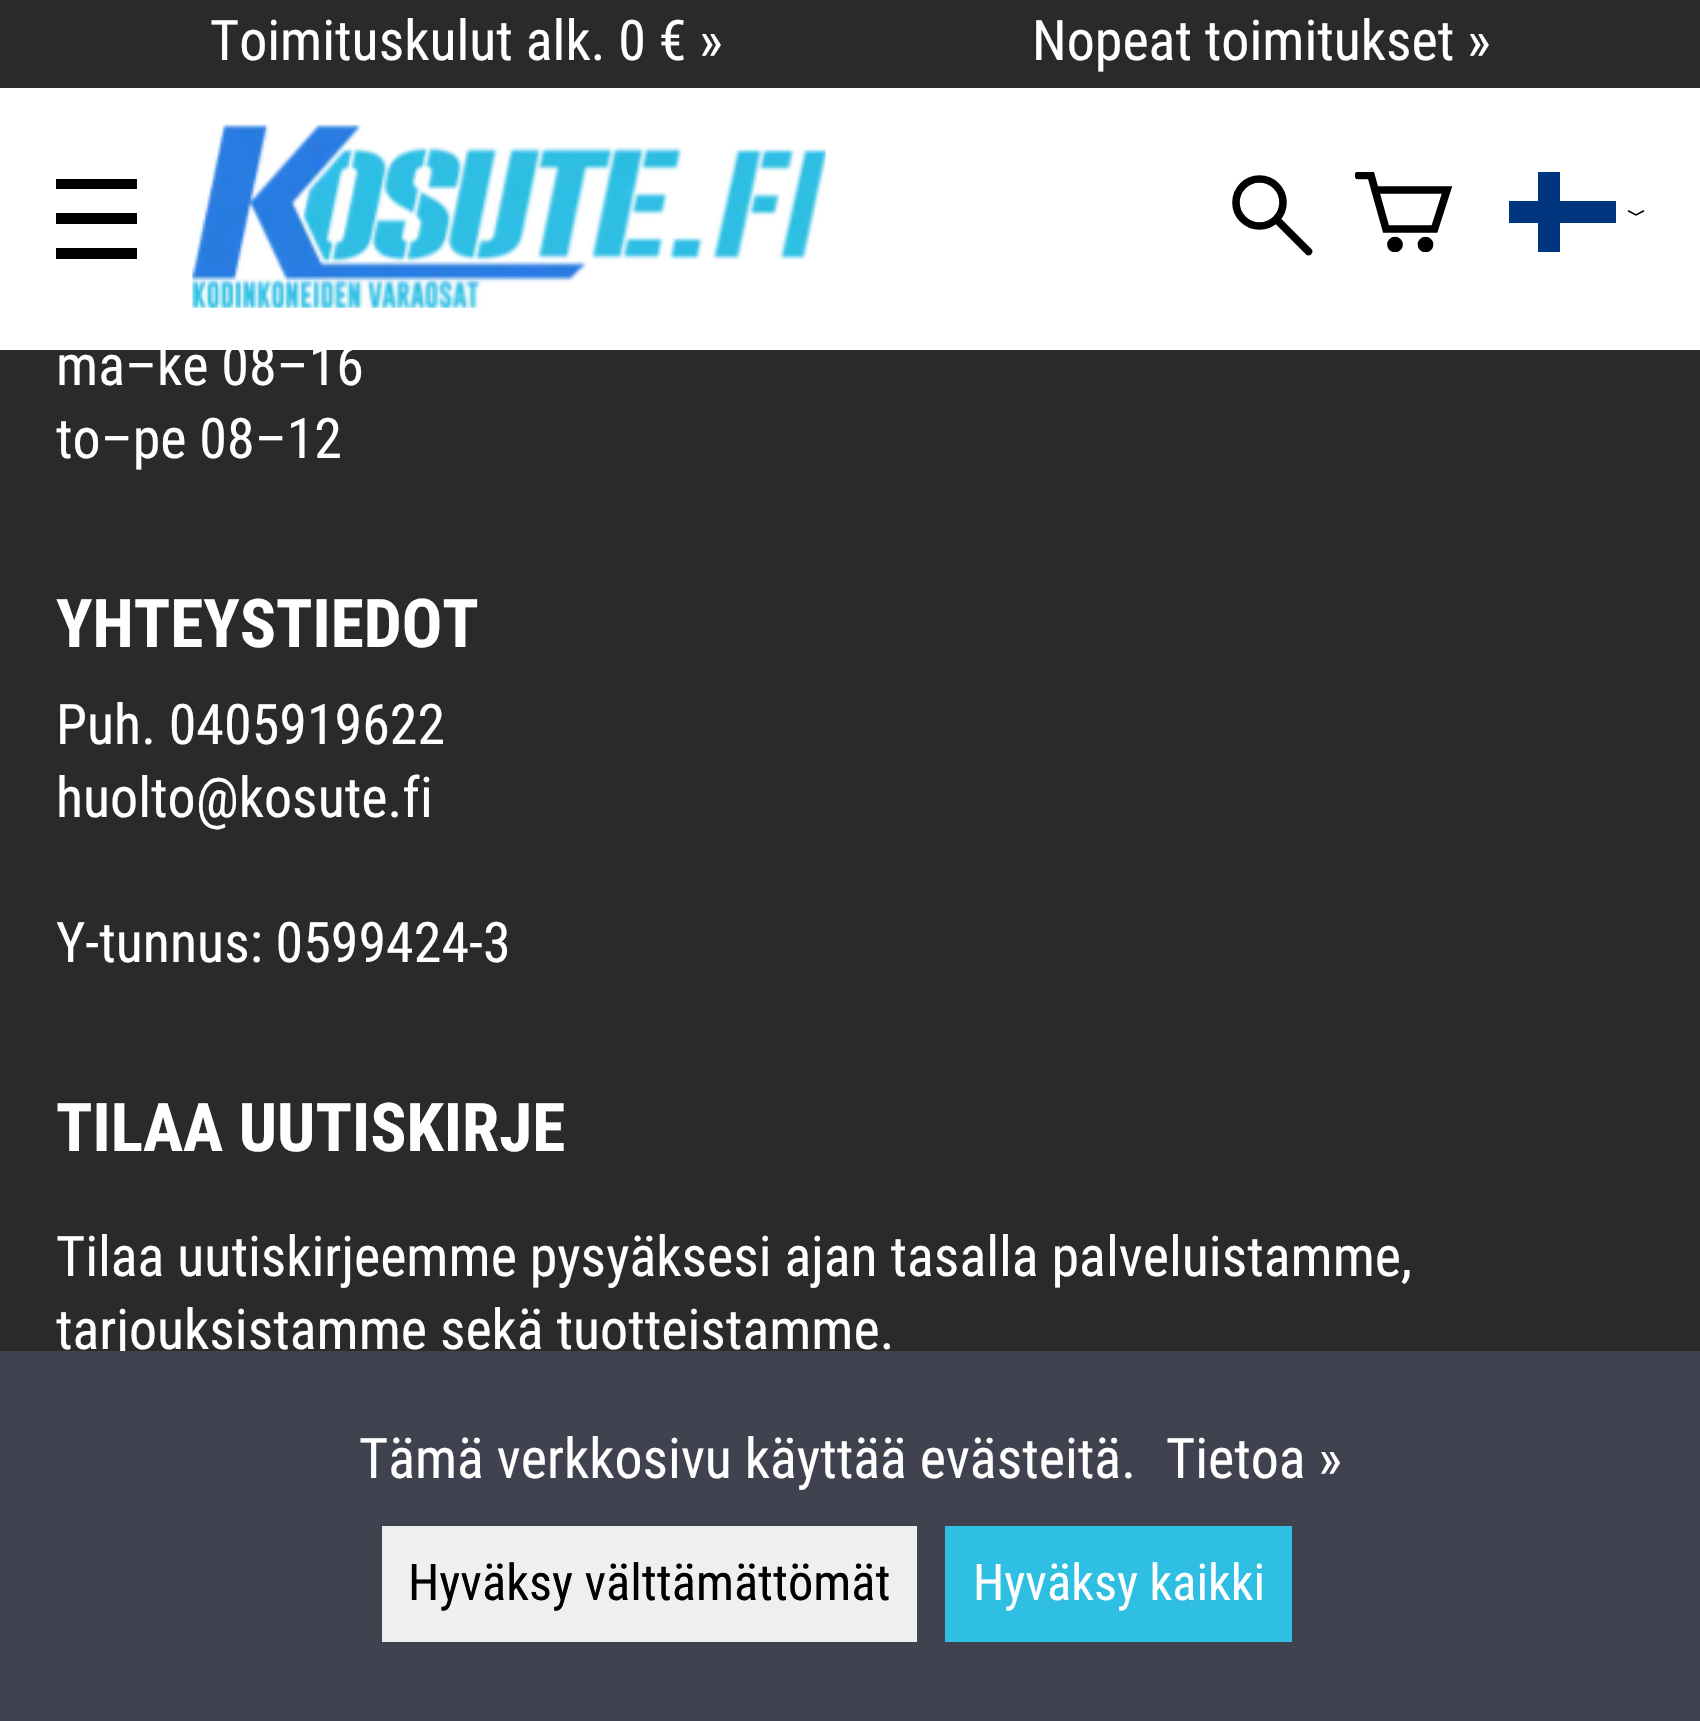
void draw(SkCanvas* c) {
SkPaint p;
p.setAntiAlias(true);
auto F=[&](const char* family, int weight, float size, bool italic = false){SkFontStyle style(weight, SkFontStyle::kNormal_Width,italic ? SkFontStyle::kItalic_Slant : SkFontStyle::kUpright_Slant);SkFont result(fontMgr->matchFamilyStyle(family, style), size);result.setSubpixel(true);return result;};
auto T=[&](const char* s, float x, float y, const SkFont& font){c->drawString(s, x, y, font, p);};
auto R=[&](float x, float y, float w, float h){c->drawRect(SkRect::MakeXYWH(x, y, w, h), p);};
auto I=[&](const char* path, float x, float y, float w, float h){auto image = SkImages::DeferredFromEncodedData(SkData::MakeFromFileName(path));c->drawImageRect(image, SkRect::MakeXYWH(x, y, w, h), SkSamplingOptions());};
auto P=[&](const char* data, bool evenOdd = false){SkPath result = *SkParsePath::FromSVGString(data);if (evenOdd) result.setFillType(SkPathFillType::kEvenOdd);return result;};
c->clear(0xff2b292a);
auto f1 = F("Roboto Condensed",400,56);
p.setColor(0xffffffff);
T("Toimituskulut alk. 0 € »",210,60,f1);
T("Nopeat toimitukset »",1032,60,f1);
R(0,88,1700,262);
p.setColor(0xff000000);
R(56,179,81,10);
R(56,248,81,11);
R(56,213,81,11);
I("1.png",192,124,634,184);
p.setStroke(true);
p.setStrokeWidth(7.6);
p.setStrokeCap(SkPaint::kRound_Cap);
c->drawPath(P("M1308.5 251.5l-32-32"),p);
p.setStrokeCap(SkPaint::kButt_Cap);
c->drawCircle(1259.5,202.5,23.5,p);
c->save();
c->clipRect(SkRect::MakeXYWH(1355,172,98,80));
p.setStrokeWidth(7.7);
p.setStrokeCap(SkPaint::kRound_Cap);
c->drawPath(P("M1375 190h72l-12.5 39h-48.5l-15-53.5h-12.5"),p);
p.setStrokeCap(SkPaint::kButt_Cap);
c->drawCircle(1395,244.5,4,p);
c->drawCircle(1425.5,244.5,4,p);
c->restore();
p.setStroke(false);
p.setColor(0xff003580);
R(1509,201,107,22);
R(1538,172,22,80);
p.setStroke(true);
p.setStrokeWidth(1.5);
p.setStrokeCap(SkPaint::kRound_Cap);
p.setColor(0xff000000);
c->drawPath(P("M1628.5 211l7.5 4l7.5-4"),p);
p.setStroke(false);
p.setColor(0xffffffff);
T("ma–ke 08–16",56,385,f1);
T("to–pe 08–12",56,458,f1);
auto f2 = F("Roboto Condensed",700,67.25);
T("YHTEYSTIEDOT",56,647,f2);
T("Puh. 0405919622",56,744,f1);
T("huolto@kosute.fi",56,817,f1);
T("Y-tunnus: 0599424-3",56,962,f1);
T("TILAA UUTISKIRJE",56,1151,f2);
T("Tilaa uutiskirjeemme pysyäksesi ajan tasalla palveluistamme,",56,1276,f1);
T("tarjouksistamme sekä tuotteistamme.",56,1349,f1);
p.setColor(0xff41424f);
R(0,1351,1700,370);
p.setColor(0xffffffff);
T("Tämä verkkosivu käyttää evästeitä.",359,1478,f1);
T("Tietoa »",1166,1478,f1);
p.setColor(0xffefefef);
R(382,1526,535,116);
auto f3 = F("Roboto Condensed",400,50.5);
p.setColor(0xff000000);
T("Hyväksy välttämättömät",408,1600,f3);
p.setColor(0xff2ebfe3);
R(945,1526,347,116);
p.setColor(0xffffffff);
T("Hyväksy kaikki",973,1600,f3);
}
